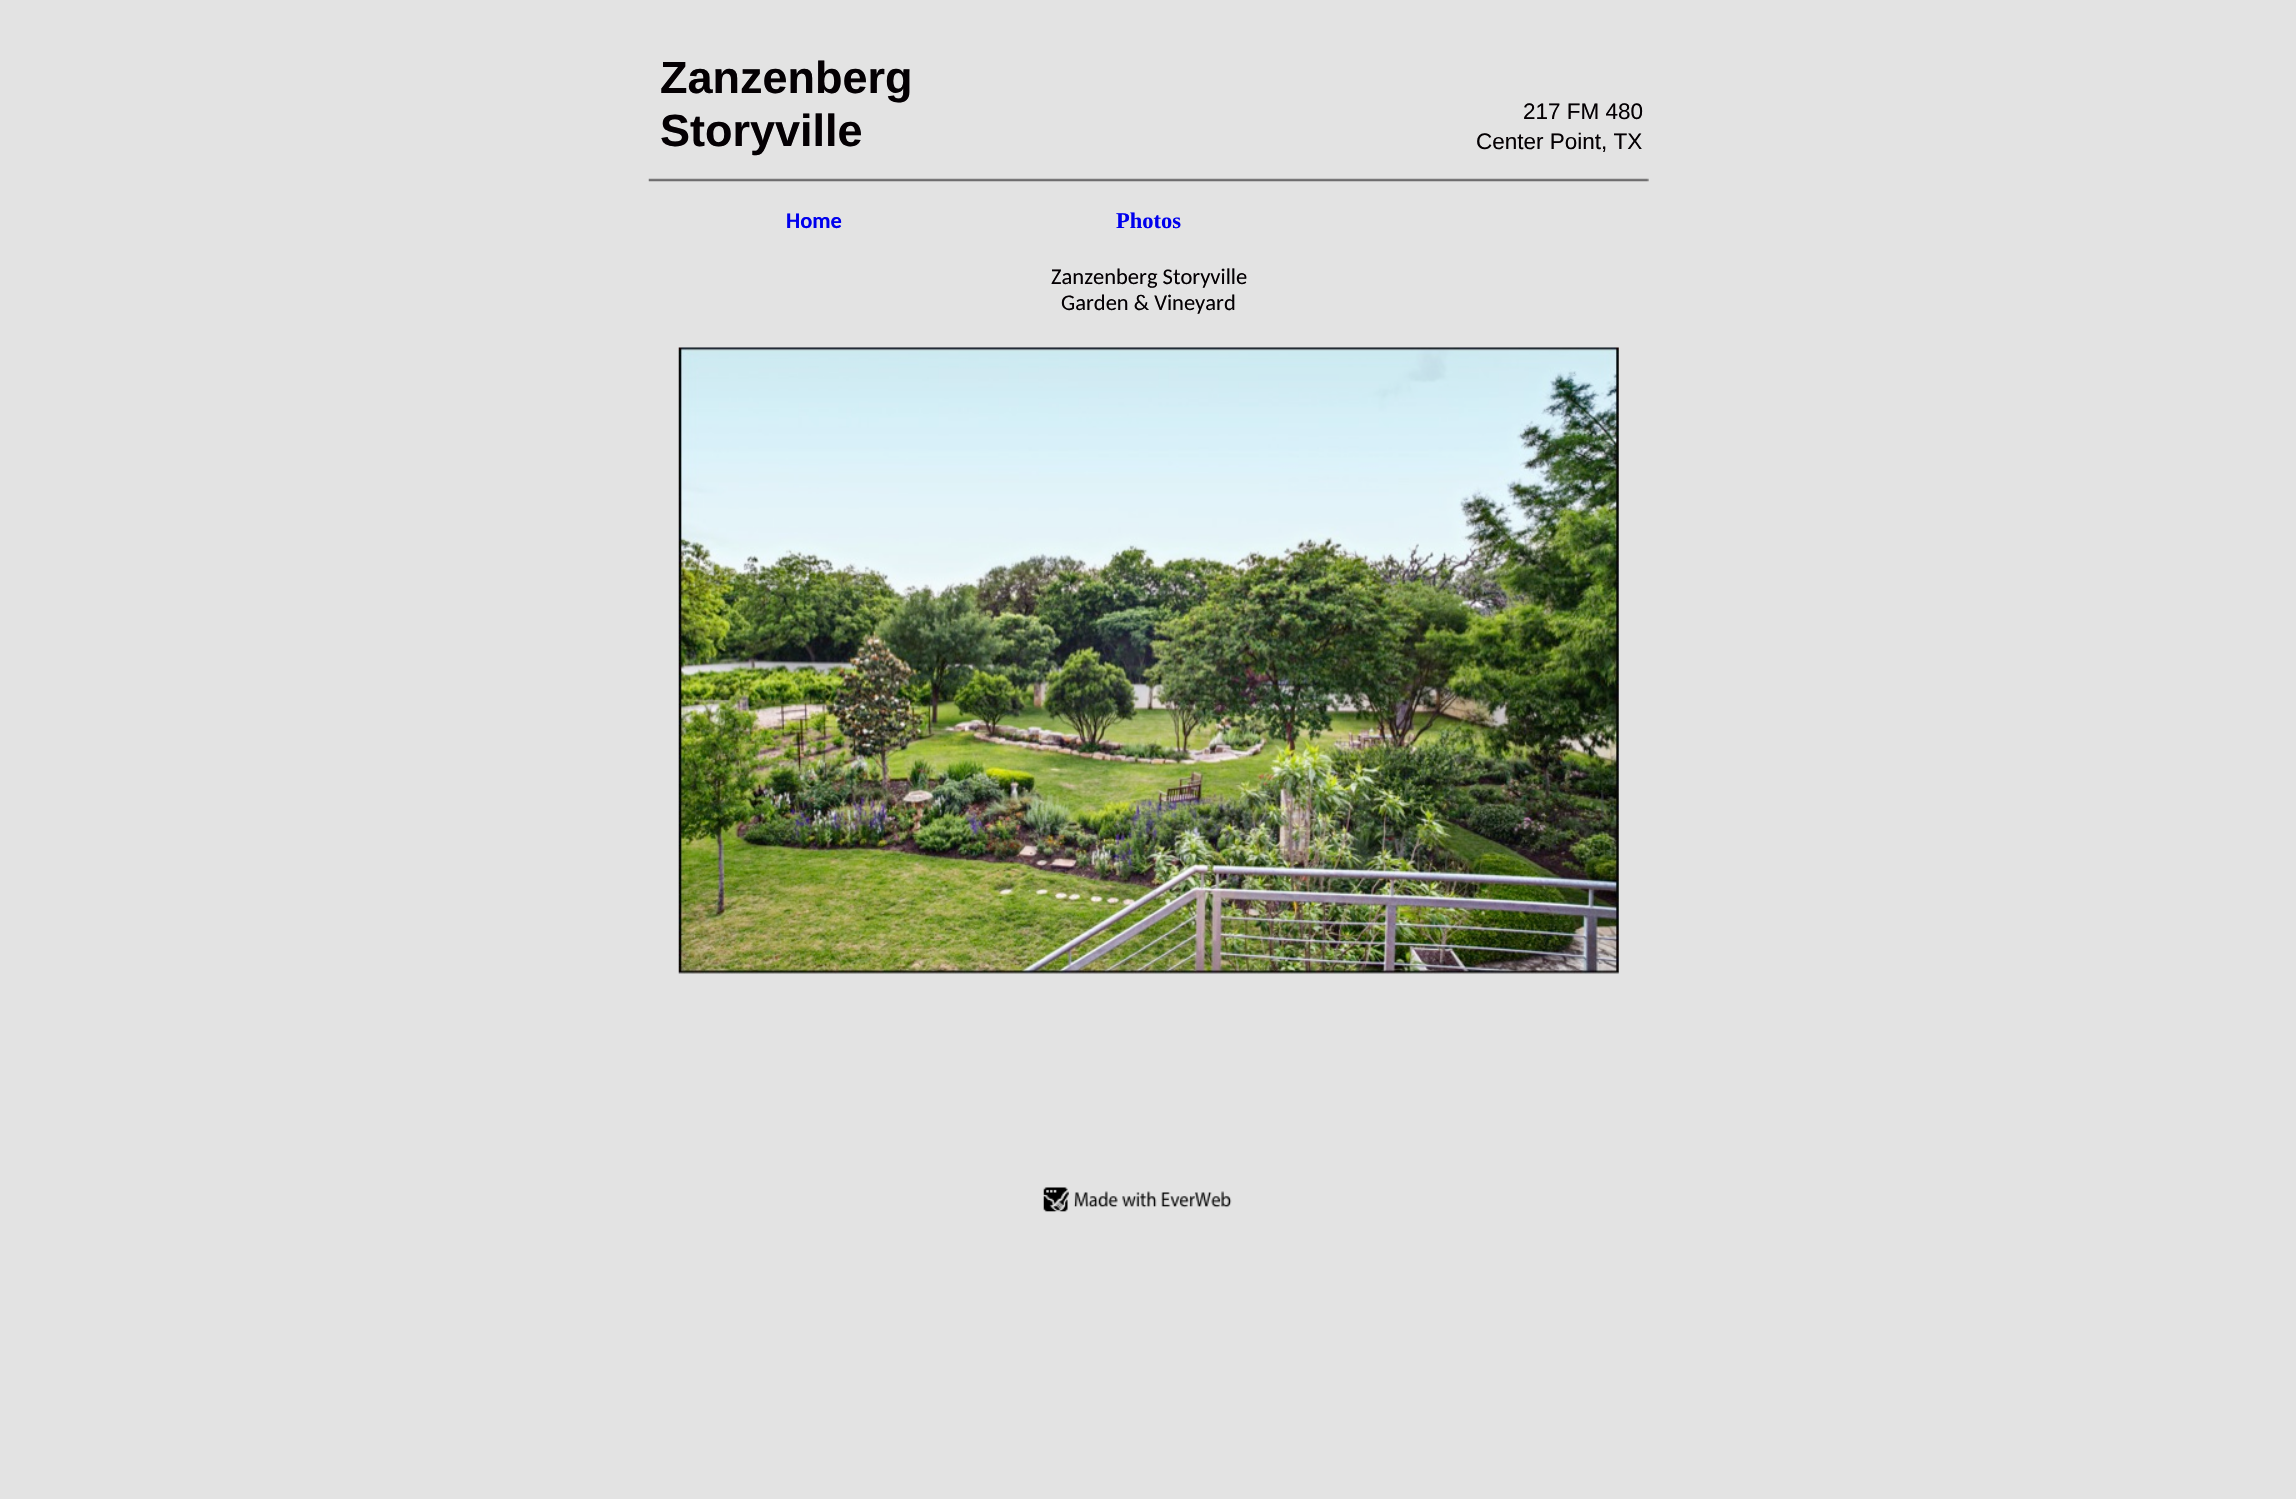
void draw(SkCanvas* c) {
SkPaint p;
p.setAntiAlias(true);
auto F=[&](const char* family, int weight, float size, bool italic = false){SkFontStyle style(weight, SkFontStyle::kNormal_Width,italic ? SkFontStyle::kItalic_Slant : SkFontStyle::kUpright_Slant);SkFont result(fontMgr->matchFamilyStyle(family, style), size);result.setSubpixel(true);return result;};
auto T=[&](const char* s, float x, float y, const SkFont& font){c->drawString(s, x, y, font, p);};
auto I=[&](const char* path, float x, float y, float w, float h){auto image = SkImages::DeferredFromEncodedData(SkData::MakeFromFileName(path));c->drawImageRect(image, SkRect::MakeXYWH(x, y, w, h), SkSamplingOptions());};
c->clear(0xffe3e3e3);
auto f1 = F("Liberation Sans",700,45);
p.setColor(0xff040003);
T("Zanzenberg",660,93,f1);
T("Storyville",660,146,f1);
auto f2 = F("Liberation Sans",400,22.5);
T("217 FM 480",1523,119,f2);
T("Center Point, TX",1476,149,f2);
I("1.png",648,178,1001,4);
auto f3 = F("Carlito",700,22.5);
p.setColor(0xff0000ee);
T("Home",786,228,f3);
auto f4 = F("Liberation Serif",700,22.5);
T("Photos",1116,228,f4);
auto f5 = F("Carlito",400,22.5);
p.setColor(0xff040003);
T("Zanzenberg Storyville",1051,284,f5);
T("Garden & Vineyard",1061,310,f5);
I("2.png",678,347,941,627);
I("3.png",1043,1187,189,25);
}
